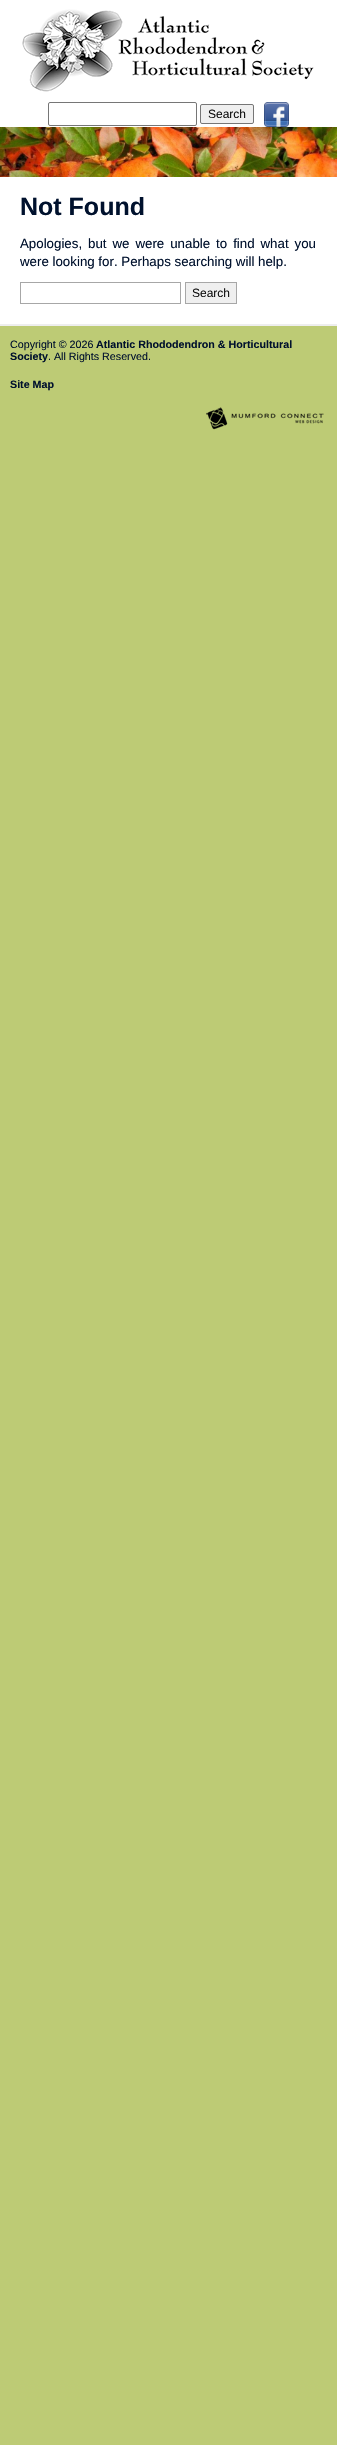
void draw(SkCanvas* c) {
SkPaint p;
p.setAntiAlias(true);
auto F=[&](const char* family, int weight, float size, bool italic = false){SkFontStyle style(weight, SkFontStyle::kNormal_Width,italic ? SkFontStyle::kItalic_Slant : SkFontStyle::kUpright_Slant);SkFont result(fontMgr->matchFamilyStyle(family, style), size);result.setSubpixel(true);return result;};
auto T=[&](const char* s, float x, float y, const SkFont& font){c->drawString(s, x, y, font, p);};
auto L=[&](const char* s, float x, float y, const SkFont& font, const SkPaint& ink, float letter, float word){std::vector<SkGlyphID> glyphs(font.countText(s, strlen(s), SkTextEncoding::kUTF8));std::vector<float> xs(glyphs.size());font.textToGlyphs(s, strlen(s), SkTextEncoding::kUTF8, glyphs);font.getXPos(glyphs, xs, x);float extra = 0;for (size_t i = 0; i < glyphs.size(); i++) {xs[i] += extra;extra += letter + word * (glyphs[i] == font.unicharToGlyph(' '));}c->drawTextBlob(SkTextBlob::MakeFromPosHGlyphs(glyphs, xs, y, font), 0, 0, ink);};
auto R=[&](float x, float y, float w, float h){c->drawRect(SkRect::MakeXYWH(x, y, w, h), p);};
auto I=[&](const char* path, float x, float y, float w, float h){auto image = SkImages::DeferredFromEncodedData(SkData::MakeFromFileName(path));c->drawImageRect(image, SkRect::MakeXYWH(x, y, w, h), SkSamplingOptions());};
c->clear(0xffbdcb75);
p.setColor(0xffffffff);
R(0,0,337,324);
I("1.png",22,9,292,83);
p.setStroke(true);
p.setStrokeWidth(1);
p.setColor(0xff767676);
c->drawRoundRect(SkRect::MakeXYWH(48.5,102.5,148,23),1.5,1.5,p);
p.setStroke(false);
p.setColor(0xffefefef);
c->drawRoundRect(SkRect::MakeXYWH(200.5,104.5,53,19),1.5,1.5,p);
p.setStroke(true);
p.setColor(0xff767676);
c->drawRoundRect(SkRect::MakeXYWH(200.5,104.5,53,19),1.5,1.5,p);
auto f1 = F("Liberation Sans",400,12);
p.setStroke(false);
p.setColor(0xff111111);
T("Search",208,118,f1);
I("2.png",264,102,25,25);
I("3.png",0,127,337,50);
auto f2 = F("Liberation Sans",700,25);
p.setColor(0xff00112d);
T("Not Found",20,215,f2);
auto f3 = F("Liberation Sans",400,13.3);
L("Apologies, but we were unable to find what you",20,248,f3,p,0,2.25);
T("were looking for. Perhaps searching will help.",20,266,f3);
p.setStroke(true);
p.setColor(0xffa7a7a7);
c->drawRect(SkRect::MakeXYWH(20.5,282.5,160,21),p);
p.setStroke(false);
p.setColor(0xffefefef);
c->drawRect(SkRect::MakeXYWH(185.5,282.5,51,21),p);
p.setStroke(true);
p.setColor(0xffa7a7a7);
c->drawRect(SkRect::MakeXYWH(185.5,282.5,51,21),p);
p.setStroke(false);
p.setColor(0xff111111);
T("Search",192,297,f1);
p.setColor(0xffeeeeee);
R(0,324,337,2);
auto f4 = F("Liberation Sans",400,10.7);
p.setColor(0xff00112d);
T("Copyright © 2026",10,348,f4);
auto f5 = F("Liberation Sans",700,10.7);
T("Atlantic Rhododendron & Horticultural",96,348,f5);
T("Society",10,360,f5);
T(". All Rights Reserved.",48,360,f4);
T("Site Map",10,388,f5);
I("4.png",206,407,118,23);
}
